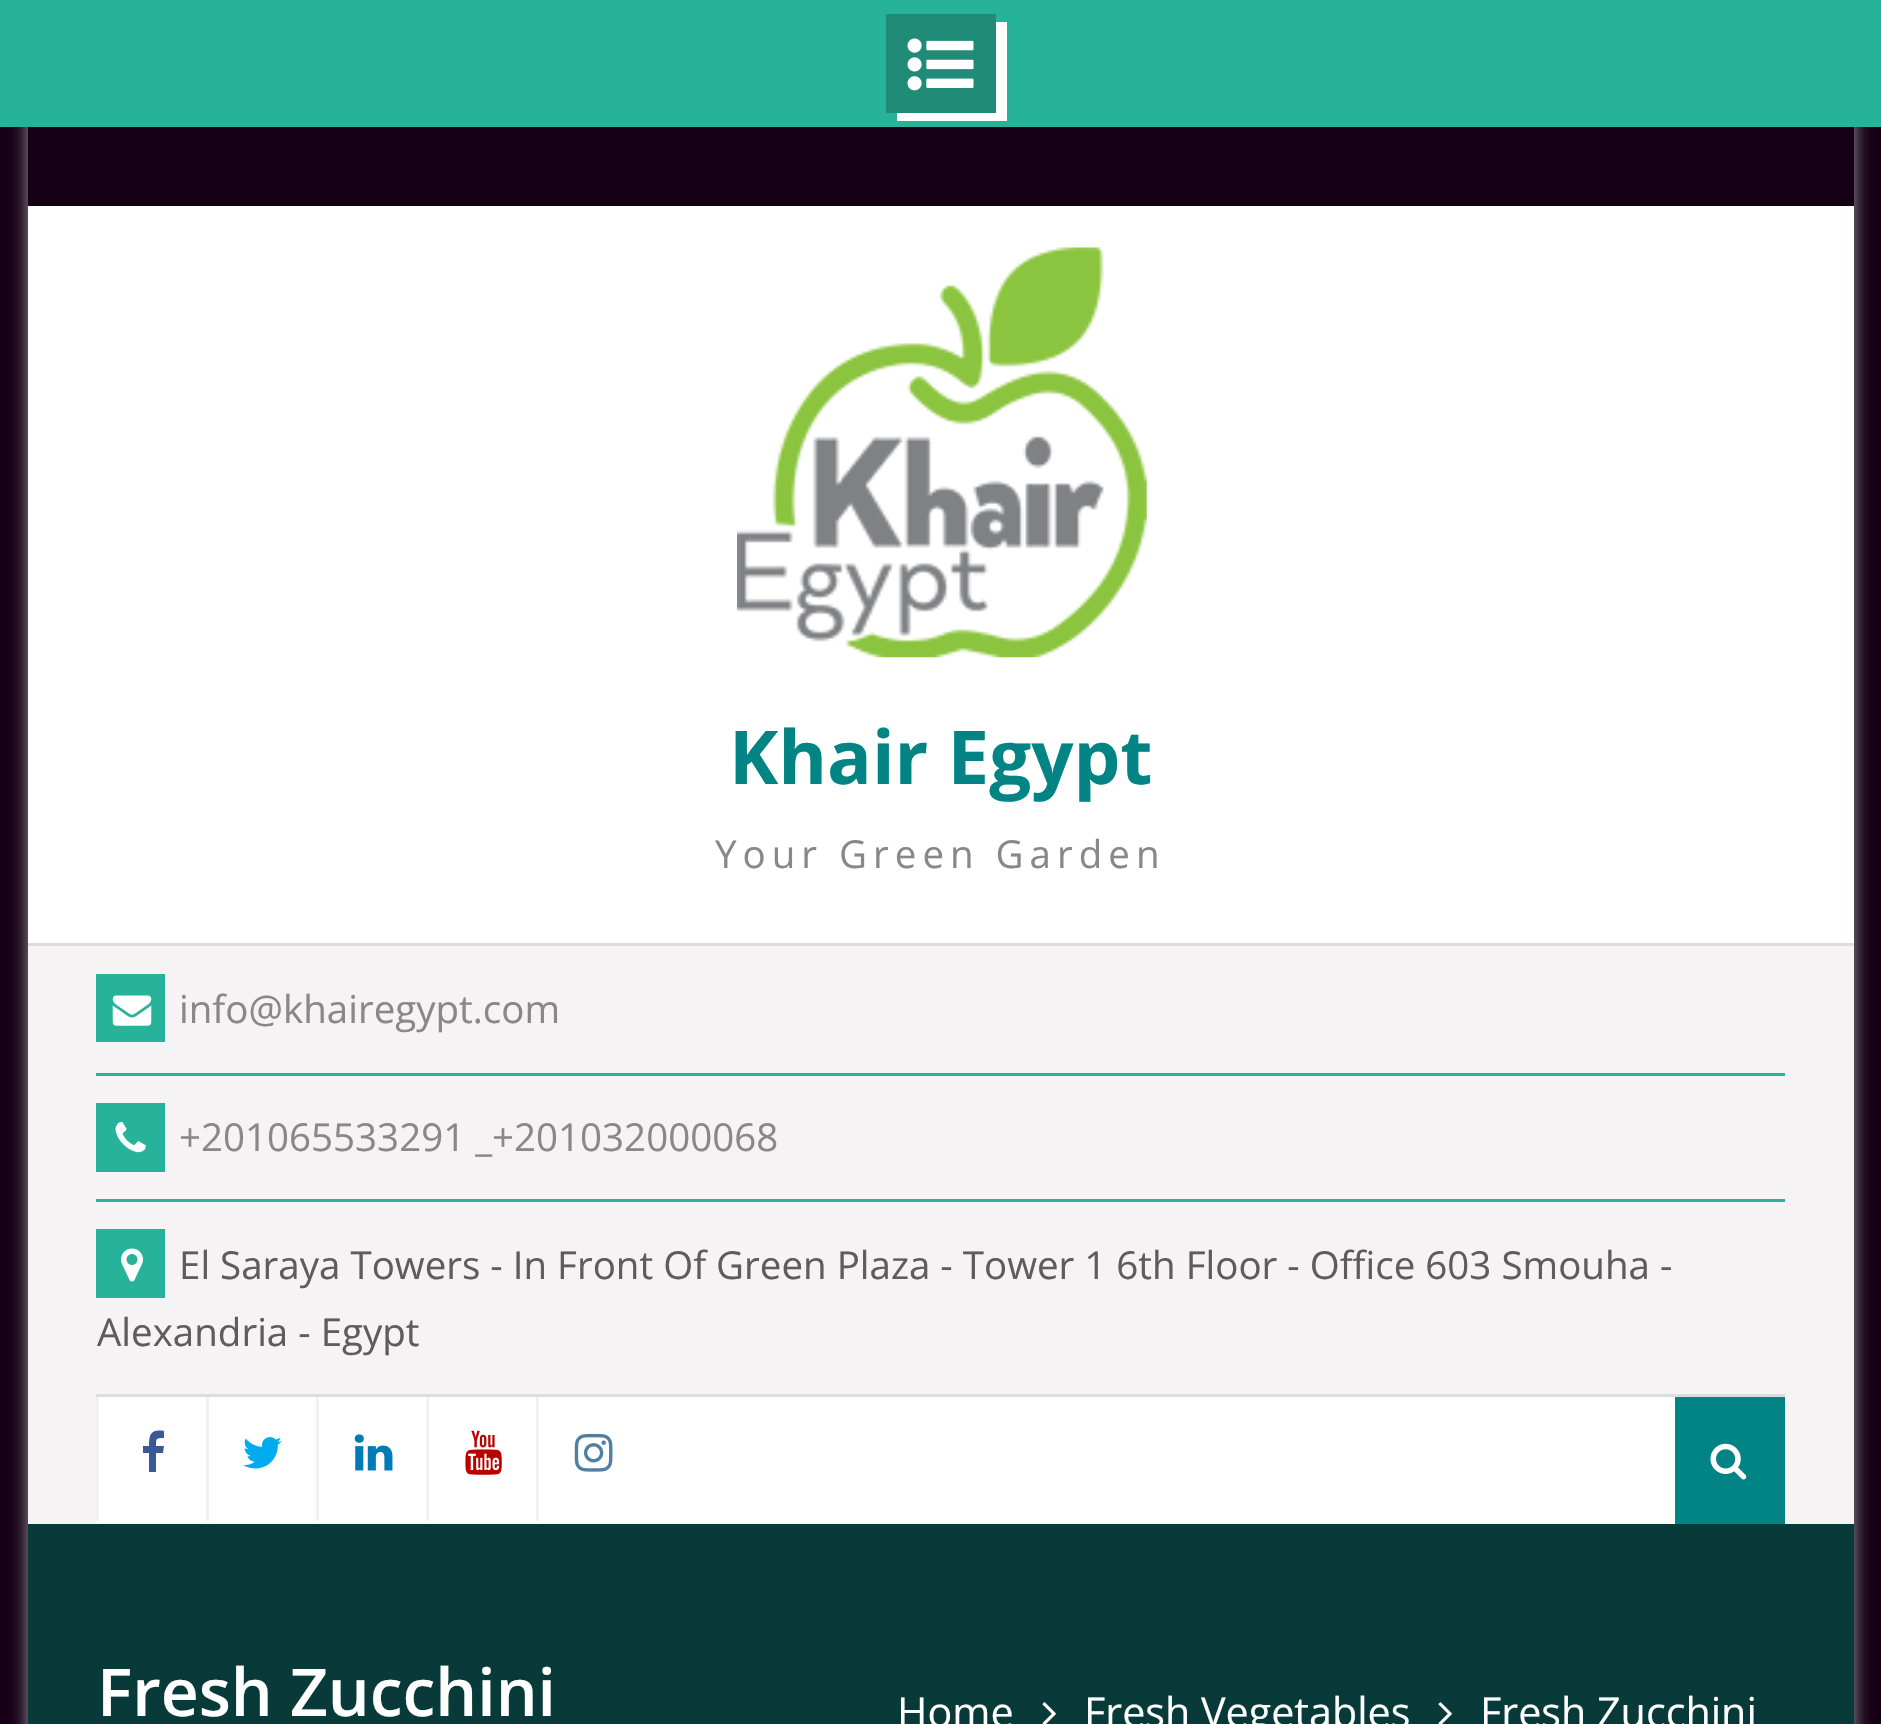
void draw(SkCanvas* c) {
SkPaint p;
p.setAntiAlias(true);
auto F=[&](const char* family, int weight, float size, bool italic = false){SkFontStyle style(weight, SkFontStyle::kNormal_Width,italic ? SkFontStyle::kItalic_Slant : SkFontStyle::kUpright_Slant);SkFont result(fontMgr->matchFamilyStyle(family, style), size);result.setSubpixel(true);return result;};
auto T=[&](const char* s, float x, float y, const SkFont& font){c->drawString(s, x, y, font, p);};
auto L=[&](const char* s, float x, float y, const SkFont& font, const SkPaint& ink, float letter, float word){std::vector<SkGlyphID> glyphs(font.countText(s, strlen(s), SkTextEncoding::kUTF8));std::vector<float> xs(glyphs.size());font.textToGlyphs(s, strlen(s), SkTextEncoding::kUTF8, glyphs);font.getXPos(glyphs, xs, x);float extra = 0;for (size_t i = 0; i < glyphs.size(); i++) {xs[i] += extra;extra += letter + word * (glyphs[i] == font.unicharToGlyph(' '));}c->drawTextBlob(SkTextBlob::MakeFromPosHGlyphs(glyphs, xs, y, font), 0, 0, ink);};
auto R=[&](float x, float y, float w, float h){c->drawRect(SkRect::MakeXYWH(x, y, w, h), p);};
auto I=[&](const char* path, float x, float y, float w, float h){auto image = SkImages::DeferredFromEncodedData(SkData::MakeFromFileName(path));c->drawImageRect(image, SkRect::MakeXYWH(x, y, w, h), SkSamplingOptions());};
auto P=[&](const char* data, bool evenOdd = false){SkPath result = *SkParsePath::FromSVGString(data);if (evenOdd) result.setFillType(SkPathFillType::kEvenOdd);return result;};
c->clear(0xff160016);
c->save();
c->clipPath(P("M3 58h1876v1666h-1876zm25 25h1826v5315h-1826z",true),true);
p.setColor(0xff999999);
p.setMaskFilter(SkMaskFilter::MakeBlur(kNormal_SkBlurStyle, 8));
c->drawRect(SkRect::MakeXYWH(28,83,1826,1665),p);
p.setMaskFilter(nullptr);
c->restore();
p.setColor(0xff27b399);
R(0,0,1881,127);
p.setColor(0xffffffff);
c->drawPath(P("M897 113v8h110v-99h-11v91z"),p);
p.setColor(0xff208c78);
R(886,14,110,99);
I("1.png",907,38,67,53);
p.setColor(0xffffffff);
R(28,206,1826,737);
p.setColor(0xffdddddd);
R(28,943,1826,3);
I("2.png",737,247,410,411);
auto f1 = F("Open Sans",700,74.25);
p.setColor(0xff028484);
T("Khair Egypt",729,784,f1);
auto f2 = F("Open Sans",400,38.5);
p.setColor(0xff888888);
L("Your Green Garden",715,868,f2,p,6,0);
p.setColor(0xfff5f3f3);
R(28,946,1826,578);
p.setColor(0xff27b399);
R(96,1073,1689,3);
R(96,974,69,68);
I("3.png",112,995,40,31);
p.setColor(0xff888888);
T("info@khairegypt.com",179,1023,f2);
p.setColor(0xff27b399);
R(96,1199,1689,3);
R(96,1103,69,69);
I("4.png",115,1122,31,31);
p.setColor(0xff888888);
T("+201065533291 _+201032000068",179,1151,f2);
p.setColor(0xff27b399);
R(96,1229,69,69);
I("5.png",121,1248,22,34);
p.setColor(0xff5d5d5d);
T("El Saraya Towers - In Front Of Green Plaza - Tower 1 6th Floor - Office 603 Smouha -",179,1279,f2);
T("Alexandria - Egypt",97,1346,f2);
p.setColor(0xffffffff);
R(96,1397,1579,127);
p.setColor(0xffdddddd);
R(96,1394,1689,3);
p.setColor(0xfff1f1f1);
R(96,1397,3,124);
p.setColor(0xff3b5998);
c->drawPath(P("M164 1431c-13-2-15 3-15 15h-6v7h6v19h7v-19h7l1-7h-8c0-8 0-8 8-8z"),p);
p.setColor(0xfff1f1f1);
R(206,1397,3,124);
I("6.png",243,1437,39,32);
R(316,1397,3,124);
I("7.png",354,1434,39,37);
R(426,1397,3,124);
I("8.png",465,1430,37,45);
R(536,1397,3,124);
I("9.png",574,1433,39,39);
p.setColor(0xff028484);
R(1675,1397,110,127);
I("10.png",1710,1443,37,37);
p.setColor(0xff083a3a);
R(28,1524,1826,200);
auto f3 = F("Open Sans",600,66);
p.setColor(0xffffffff);
T("Fresh Zucchini",97,1716,f3);
auto f4 = F("Open Sans",400,41.25);
T("Home",897,1727,f4);
I("11.png",1042,1702,14,22);
T("Fresh Vegetables",1084,1727,f4);
I("11.png",1438,1702,14,22);
T("Fresh Zucchini",1480,1727,f4);
}
